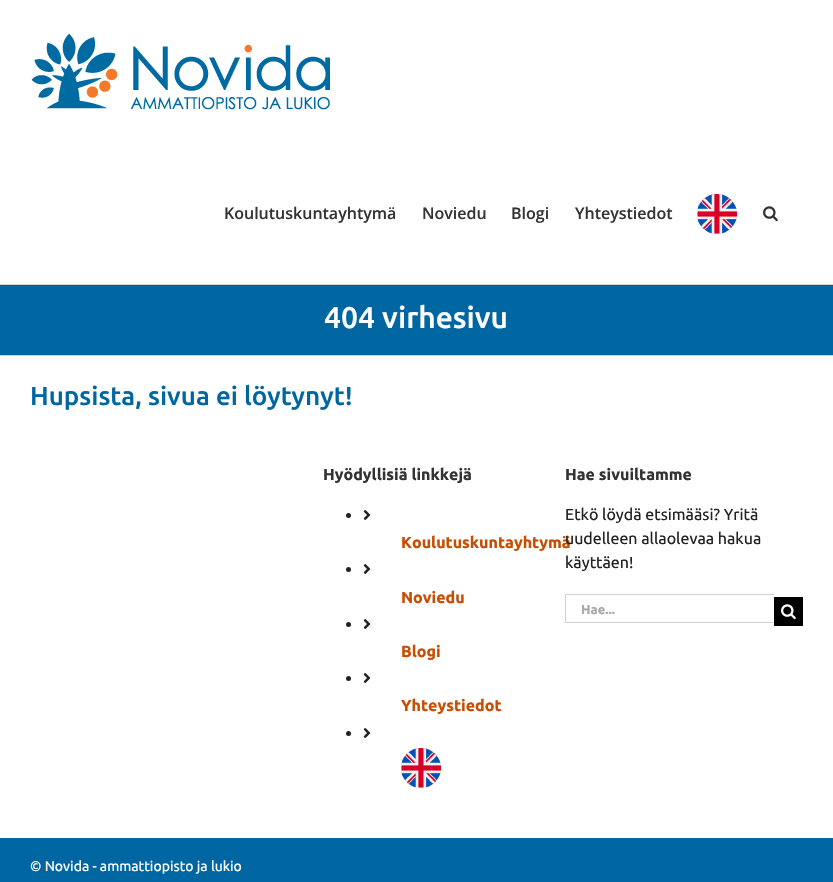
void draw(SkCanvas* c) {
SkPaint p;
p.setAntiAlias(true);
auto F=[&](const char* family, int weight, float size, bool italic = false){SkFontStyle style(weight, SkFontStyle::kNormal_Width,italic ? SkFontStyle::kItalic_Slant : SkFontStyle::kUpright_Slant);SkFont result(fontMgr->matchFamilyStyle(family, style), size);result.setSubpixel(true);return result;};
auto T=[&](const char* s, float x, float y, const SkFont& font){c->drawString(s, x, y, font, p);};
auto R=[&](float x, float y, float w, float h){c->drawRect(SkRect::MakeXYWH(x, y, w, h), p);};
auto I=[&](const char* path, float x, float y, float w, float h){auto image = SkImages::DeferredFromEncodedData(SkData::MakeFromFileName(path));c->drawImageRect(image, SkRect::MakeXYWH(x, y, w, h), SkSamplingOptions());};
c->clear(0xffffffff);
I("1.png",31,34,299,76);
auto f1 = F("Open Sans",600,16);
p.setColor(0xff333333);
T("Koulutuskuntayhtymä",224,219,f1);
T("Noviedu",422,219,f1);
T("Blogi",511,219,f1);
T("Yhteystiedot",575,219,f1);
I("2.png",697,194,40,40);
I("3.png",763,206,15,16);
p.setColor(0xff0066a1);
R(0,285,833,70);
p.setColor(0xffd2d3d4);
R(0,284,833,1);
R(0,355,833,1);
auto f2 = F("Ubuntu",500,30);
p.setColor(0xffffffff);
T("404 virhesivu",324,328,f2);
auto f3 = F("Ubuntu",500,26);
p.setColor(0xff0066a1);
T("Hupsista, sivua ei löytynyt!",30,405,f3);
auto f4 = F("Ubuntu",700,16);
p.setColor(0xff333333);
T("Hyödyllisiä linkkejä",323,480,f4);
p.setColor(0xff222222);
c->drawCircle(348.5,515.5,2.5,p);
I("4.png",363,510,8,10);
p.setColor(0xffc94c00);
T("Koulutuskuntayhtymä",401,548,f4);
p.setColor(0xff222222);
c->drawCircle(348.5,569.5,2.5,p);
I("4.png",363,564,8,10);
p.setColor(0xffc94c00);
T("Noviedu",401,603,f4);
p.setColor(0xff222222);
c->drawCircle(348.5,624.5,2.5,p);
I("4.png",363,619,8,10);
p.setColor(0xffc94c00);
T("Blogi",401,657,f4);
p.setColor(0xff222222);
c->drawCircle(348.5,678.5,2.5,p);
I("4.png",363,673,8,10);
p.setColor(0xffc94c00);
T("Yhteystiedot",401,711,f4);
p.setColor(0xff222222);
c->drawCircle(348.5,733.5,2.5,p);
I("4.png",363,728,8,10);
I("2.png",401,748,40,40);
p.setColor(0xff333333);
T("Hae sivuiltamme",565,480,f4);
auto f5 = F("Ubuntu",400,16);
p.setColor(0xff222222);
T("Etkö löydä etsimääsi? Yritä",565,520,f5);
T("uudelleen allaolevaa hakua",565,544,f5);
T("käyttäen!",565,568,f5);
p.setColor(0xffd2d2d2);
R(565,594,209,1);
R(565,622,209,1);
R(565,594,1,29);
auto f6 = F("Ubuntu",700,13);
p.setColor(0xffaaa9a9);
T("Hae...",581,614,f6);
p.setColor(0xff000000);
R(774,597,29,29);
I("5.png",781,604,15,16);
p.setColor(0xff0066a1);
R(0,838,833,44);
auto f7 = F("Ubuntu",400,14);
p.setColor(0xffffffff);
T("© Novida - ammattiopisto ja lukio",30,871,f7);
}
